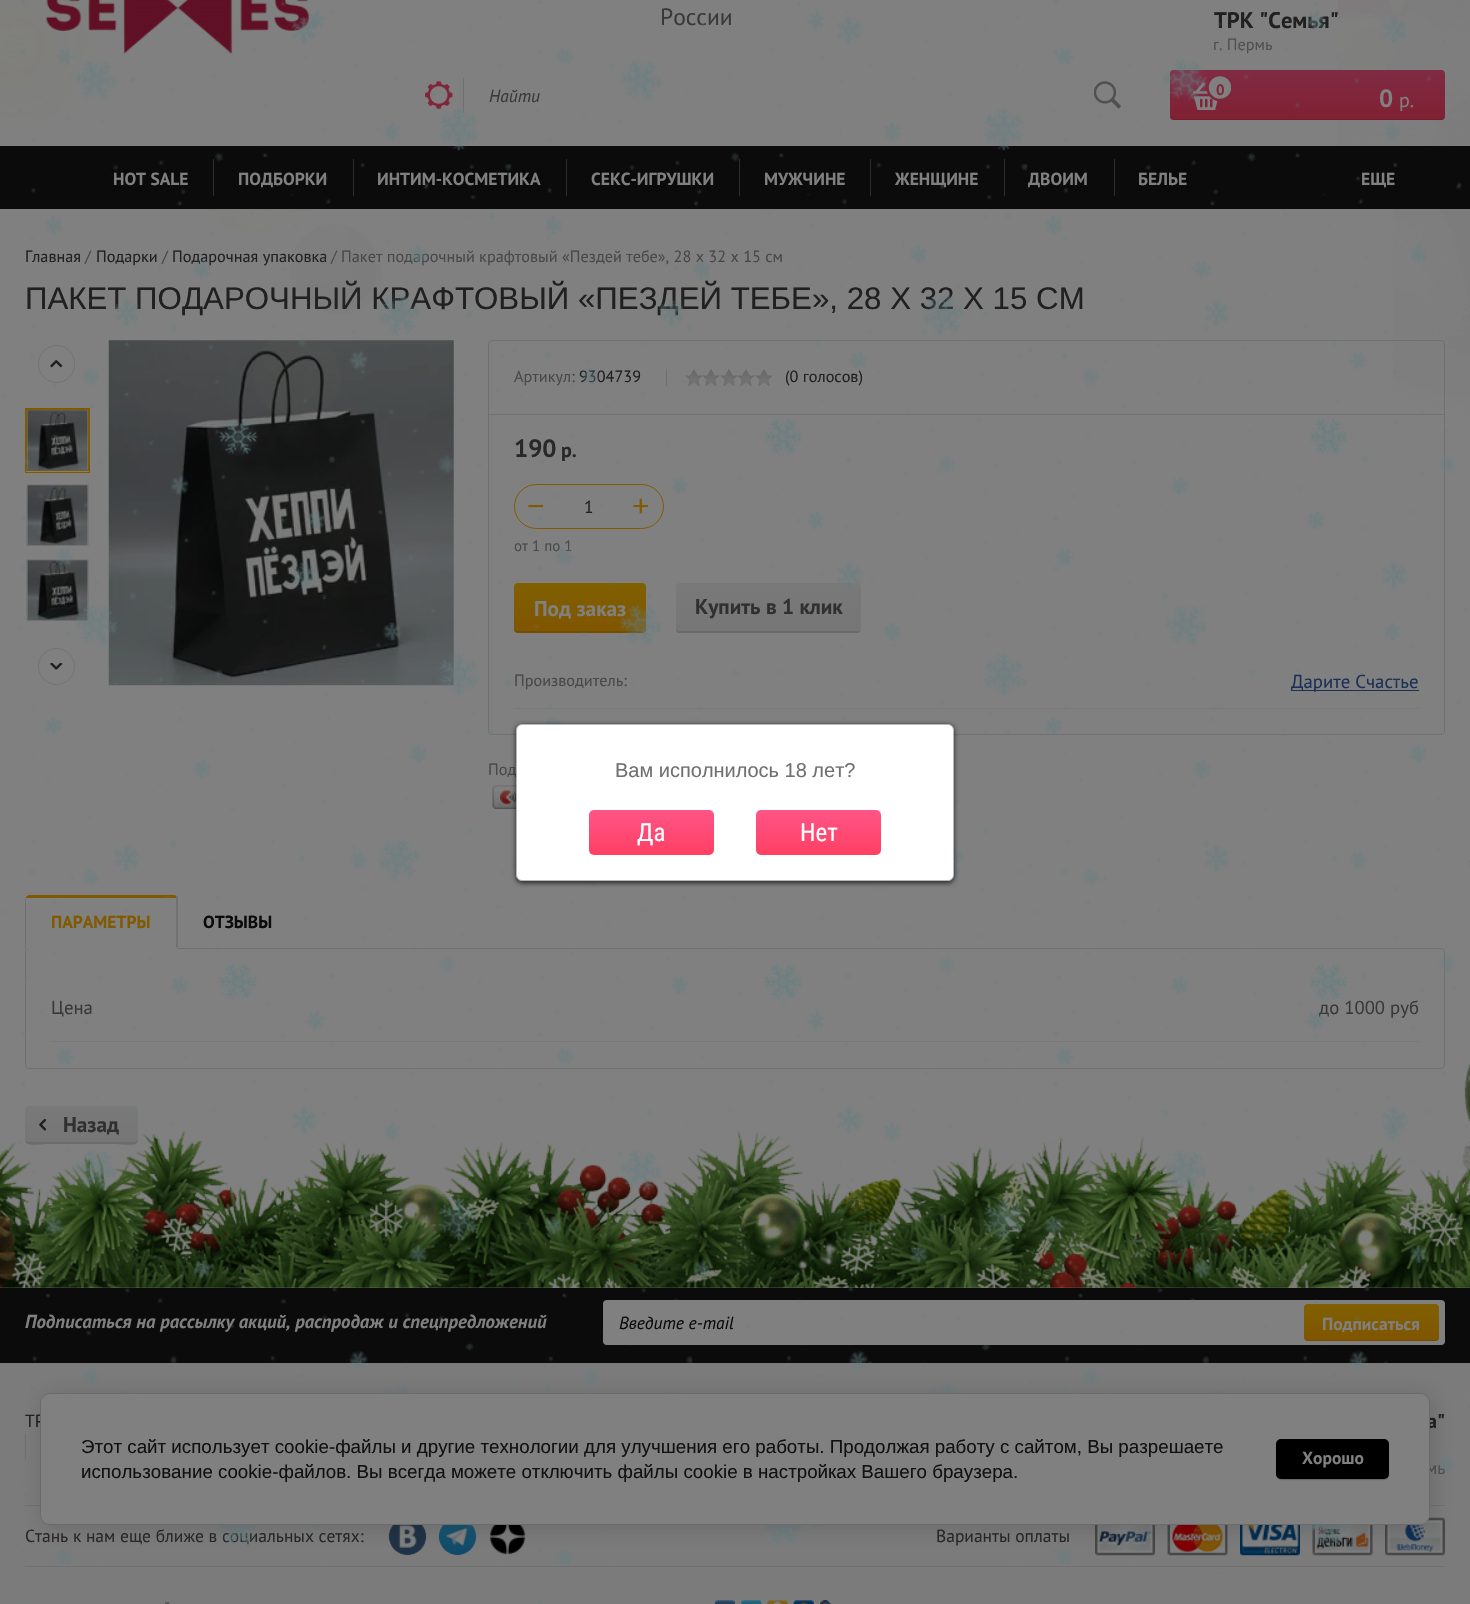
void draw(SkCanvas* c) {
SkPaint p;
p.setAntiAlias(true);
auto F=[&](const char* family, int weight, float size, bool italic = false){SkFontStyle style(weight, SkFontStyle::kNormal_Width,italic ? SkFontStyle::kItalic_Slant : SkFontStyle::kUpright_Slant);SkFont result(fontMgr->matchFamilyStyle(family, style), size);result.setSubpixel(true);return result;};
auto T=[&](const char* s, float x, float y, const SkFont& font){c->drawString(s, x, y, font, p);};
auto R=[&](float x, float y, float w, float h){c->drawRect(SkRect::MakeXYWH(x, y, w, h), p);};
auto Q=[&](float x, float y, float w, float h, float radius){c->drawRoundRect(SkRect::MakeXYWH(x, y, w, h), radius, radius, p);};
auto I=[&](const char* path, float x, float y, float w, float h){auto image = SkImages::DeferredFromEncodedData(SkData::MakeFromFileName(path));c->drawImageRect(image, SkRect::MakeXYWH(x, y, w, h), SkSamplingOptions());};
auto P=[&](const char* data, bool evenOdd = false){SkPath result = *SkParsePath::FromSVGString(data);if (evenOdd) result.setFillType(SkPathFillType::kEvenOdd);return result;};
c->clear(0xff808080);
auto f1 = F("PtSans",400,16.25);
p.setColor(0xff202020);
T("Главная",25,262,f1);
p.setColor(0xff484848);
T("/",85,262,f1);
p.setColor(0xff202020);
T("Подарки",96,262,f1);
p.setColor(0xff484848);
T("/",162,262,f1);
p.setColor(0xff202020);
T("Подарочная упаковка",172,262,f1);
p.setColor(0xff484848);
T("/ Пакет подарочный крафтовый «Пездей тебе», 28 x 32 x 15 см",331,262,f1);
auto f2 = F("Liberation Sans",400,31.25);
p.setColor(0xff202020);
T("ПАКЕТ ПОДАРОЧНЫЙ КРАФТОВЫЙ «ПЕЗДЕЙ ТЕБЕ», 28 X 32 X 15 СМ",25,309,f2);
p.setStroke(true);
p.setStrokeWidth(1);
p.setColor(0xff727272);
c->drawRoundRect(SkRect::MakeXYWH(38.5,345.5,36,37),18,18,p);
I("9.png",50,360,13,8);
p.setColor(0xff805a00);
c->drawRect(SkRect::MakeXYWH(26.5,409.5,62,61),p);
I("11.png",27,410,61,61);
c->drawRect(SkRect::MakeXYWH(25.5,408.5,64,64),p);
I("14.png",108,340,346,346);
p.setColor(0xff707070);
c->drawRoundRect(SkRect::MakeXYWH(488.5,340.5,956,394),3.5,3.5,p);
p.setStroke(false);
R(489,414,955,1);
R(666,369,1,17);
p.setColor(0xff484848);
T("Артикул:",514,382,f1);
p.setColor(0xff202020);
T("9304739",579,382,f1);
I("15.png",685,369,88,18);
T("(0 голосов)",785,382,f1);
I("4.png",0,0,1470,420);
I("5.png",45,0,265,54);
auto f3 = F("PtSans",400,23.5);
p.setColor(0xff383838);
T("России",660,25,f3);
auto f4 = F("PtSans",700,22.5);
p.setColor(0xff202020);
T("ТРК \"Семья\"",1214,28,f4);
p.setColor(0xff505050);
T("г. Пермь",1213,50,f1);
I("6.png",425,81,28,28);
p.setColor(0xff707070);
R(463,78,1,35);
auto f5 = F("PtSans",400,17.5,true);
p.setColor(0xff383838);
T("Найти",489,102,f5);
I("7.png",1094,81,27,28);
{
const SkColor colors[] = {0xff802032,0xff802b44};
const float stops[] = {0,1};
const SkPoint ends[] = {{1308,120}, {1308,70}};
p.setShader(SkGradientShader::MakeLinear(ends, colors, stops, 2, SkTileMode::kClamp));
p.setAlpha(255);
}
Q(1170,70,275,50,4);
p.setShader(nullptr);
p.setColor(0x1a000000);
c->drawPath(P("M1170 115c0 3 1 5 4 5h267c3 0 4-2 4-5c0 2-2 4-4 4h-267c-2 0-4-2-4-4z"),p);
I("8.png",1193,76,38,34);
auto f6 = F("PtSans",700,15);
p.setColor(0xff80253b);
T("0",1216,95,f6);
auto f7 = F("PtSans",700,25);
p.setColor(0xff808080);
T("0",1379,107,f7);
auto f8 = F("PtSans",400,20);
T("р.",1399,107,f8);
p.setColor(0xff0b0b0b);
R(0,146,1470,63);
auto f9 = F("PtSans",700,17.5);
p.setColor(0xff808080);
T("HOT SALE",113,185,f9);
p.setColor(0xff2e2e2e);
R(213,159,1,37);
p.setColor(0xff808080);
T("ПОДБОРКИ",238,185,f9);
p.setColor(0xff2e2e2e);
R(353,159,1,37);
p.setColor(0xff808080);
T("ИНТИМ-КОСМЕТИКА",377,185,f9);
p.setColor(0xff2e2e2e);
R(566,159,1,37);
p.setColor(0xff808080);
T("СЕКС-ИГРУШКИ",591,185,f9);
p.setColor(0xff2e2e2e);
R(739,159,1,37);
p.setColor(0xff808080);
T("МУЖЧИНЕ",764,185,f9);
p.setColor(0xff2e2e2e);
R(870,159,1,37);
p.setColor(0xff808080);
T("ЖЕНЩИНЕ",895,185,f9);
p.setColor(0xff2e2e2e);
R(1004,159,1,37);
p.setColor(0xff808080);
T("ДВОИМ",1028,185,f9);
p.setColor(0xff2e2e2e);
R(1114,159,1,37);
p.setColor(0xff808080);
T("БЕЛЬЕ",1138,185,f9);
T("ЕЩЕ",1361,185,f9);
p.setStroke(true);
p.setColor(0xff777777);
c->drawRect(SkRect::MakeXYWH(26.5,484.5,62,61),p);
I("12.png",27,485,61,61);
c->drawRect(SkRect::MakeXYWH(26.5,559.5,62,61),p);
I("13.png",27,560,61,61);
p.setStroke(false);
p.setColor(0xff282828);
T("190",514,457,f7);
auto f10 = F("PtSans",700,20);
T("р.",561,457,f10);
p.setStroke(true);
p.setColor(0xff805a00);
c->drawRoundRect(SkRect::MakeXYWH(514.5,484.5,149,44),22,22,p);
auto f11 = F("Liberation Sans",400,30);
p.setStroke(false);
T("−",527,516,f11);
auto f12 = F("PtSans",400,17.5);
p.setColor(0xff202020);
T("1",584,513,f12);
p.setColor(0xff805a00);
T("+",632,516,f11);
auto f13 = F("PtSans",400,15);
p.setColor(0xff484848);
T("от 1 по 1",514,551,f13);
{
const SkColor colors[] = {0xff805500,0xff806000};
const float stops[] = {0,1};
const SkPoint ends[] = {{580,633}, {580,583}};
p.setShader(SkGradientShader::MakeLinear(ends, colors, stops, 2, SkTileMode::kClamp));
p.setAlpha(255);
}
Q(514,583,132,50,4);
p.setShader(nullptr);
p.setColor(0x1a000000);
c->drawPath(P("M514 628v1c0 2 2 4 4 4h124c2 0 4-2 4-4v-1c0 2-1 3-4 3h-124c-3 0-4-1-4-3z"),p);
auto f14 = F("PtSans",700,21.25);
p.setColor(0xff808080);
T("Под заказ",534,616,f14);
{
const SkColor colors[] = {0xff767676,0xff797979};
const float stops[] = {0,1};
const SkPoint ends[] = {{769,633}, {769,583}};
p.setShader(SkGradientShader::MakeLinear(ends, colors, stops, 2, SkTileMode::kClamp));
p.setAlpha(255);
}
Q(676,583,185,50,4);
p.setShader(nullptr);
p.setColor(0xff6a6a6a);
c->drawPath(P("M676 628c0 3 1 5 4 5h178c2-1 3-3 3-5c0 2-1 3-3 3h-178c-2 0-4-1-4-3z"),p);
p.setColor(0xff303030);
T("Купить в 1 клик",695,614,f14);
p.setColor(0xff787878);
R(514,708,905,1);
p.setColor(0xff484848);
T("Производитель:",514,686,f1);
p.setColor(0xff1c2f56);
R(1291,690,128,1);
auto f15 = F("PtSans",400,18.75);
T("Дарите Счастье",1291,688,f15);
p.setColor(0xff484848);
T("Под",488,775,f1);
I("16.png",496,785,20,24);
I("17.png",492,785,5,24);
I("18.png",500,790,16,15);
p.setColor(0xff805a00);
c->drawPath(P("M29 895c-1 0-2 1-3 2v1h148h2l1-2l-3-1z"),p);
p.setStroke(true);
p.setColor(0xff707070);
c->drawRoundRect(SkRect::MakeXYWH(25.5,948.5,1419,120),3.5,3.5,p);
p.setStroke(false);
c->drawPath(P("M177 896l1 1v52l-2-2v-49z"),p);
p.setColor(0xff808080);
c->drawPath(P("M178 949l-2-2v1h-150l-1 1z"),p);
p.setColor(0xff805a00);
T("ПАРАМЕТРЫ",51,928,f9);
p.setColor(0xff0b0b0b);
T("ОТЗЫВЫ",203,928,f9);
p.setColor(0xff787878);
R(51,1041,1368,1);
p.setColor(0xff383838);
T("Цена",51,1014,f15);
T("до 1000 руб",1319,1014,f15);
{
const SkColor colors[] = {0xff767676,0xff797979};
const float stops[] = {0,1};
const SkPoint ends[] = {{81,1144}, {81,1106}};
p.setShader(SkGradientShader::MakeLinear(ends, colors, stops, 2, SkTileMode::kClamp));
p.setAlpha(255);
}
Q(25,1106,113,38,4);
p.setShader(nullptr);
p.setColor(0x1a000000);
c->drawPath(P("M25 1139c0 10 18 5 21 5h70c4 0 22 5 22-5c0 2-2 3-4 3h-105c-2 0-4-1-4-3z"),p);
p.setColor(0xff303030);
T("Назад",63,1132,f14);
p.setColor(0xff7b7b7b);
R(0,1363,1470,241);
I("19.png",39,1118,7,13);
I("20.png",0,1064,1470,224);
p.setColor(0xff0b0b0b);
R(0,1288,1470,75);
auto f16 = F("PtSans",700,18.75,true);
p.setColor(0xff808080);
T("Подписаться на рассылку акций, распродаж и спецпредложений",25,1328,f16);
Q(603,1300,842,45,4);
p.setColor(0xff0b0b0b);
T("Введите e-mail",619,1329,f5);
{
const SkColor colors[] = {0xff805500,0xff806000};
const float stops[] = {0,1};
const SkPoint ends[] = {{1371,1341}, {1371,1304}};
p.setShader(SkGradientShader::MakeLinear(ends, colors, stops, 2, SkTileMode::kClamp));
p.setAlpha(255);
}
Q(1304,1304,135,37,4);
p.setShader(nullptr);
p.setColor(0x1a000000);
c->drawPath(P("M1304 1336v1c0 2 2 4 4 4h127c2 0 4-2 4-4v-1c0 2-2 4-4 4h-127c-3 0-4-2-4-4z"),p);
p.setColor(0xff808080);
T("Подписаться",1322,1330,f9);
p.setColor(0xff707070);
R(25,1505,1420,1);
p.setColor(0xff202020);
T("а\"",1427,1428,f10);
p.setColor(0xff505050);
T("мь",1426,1474,f12);
p.setColor(0xff282828);
T("Стань к нам еще ближе в социальных сетях:",25,1542,f12);
I("21.png",388,1525,39,31);
I("22.png",438,1525,39,31);
I("23.png",489,1525,37,30);
T("Варианты оплаты",936,1542,f12);
I("24.png",1095,1525,60,31);
I("25.png",1167,1525,61,31);
I("26.png",1240,1525,60,31);
I("27.png",1312,1525,61,31);
I("28.png",1385,1517,60,39);
I("3.png",75,16,1395,1530);
p.setStroke(true);
p.setColor(0xff727272);
c->drawCircle(56.5,666.5,18,p);
I("10.png",50,663,13,7);
I("2.png",44,11,1412,1554);
p.setStroke(false);
p.setColor(0xff707070);
c->drawPath(P("M25 949l1-1v-50v-1l-1 2z"),p);
p.setColor(0xff202020);
T("ТР",25,1427,f12);
p.setColor(0xff6f6f6f);
R(25,1434,1,25);
p.setColor(0xff707070);
R(25,1566,1420,1);
p.setColor(0xff505050);
T("-",164,1608,f12);
I("29.png",715,1600,20,4);
I("30.png",741,1600,21,4);
I("31.png",767,1600,21,4);
I("32.png",793,1600,21,4);
I("33.png",820,1600,12,4);
I("1.png",2,0,1466,1603);
p.setColor(0xb3000000);
p.setMaskFilter(SkMaskFilter::MakeBlur(kNormal_SkBlurStyle, 2.5));
c->drawRoundRect(SkRect::MakeXYWH(516,725,438,158),6,6,p);
p.setMaskFilter(nullptr);
p.setColor(0xffffffff);
c->drawRoundRect(SkRect::MakeXYWH(516.5,724.5,437,156),5.5,5.5,p);
p.setStroke(true);
p.setColor(0xffb7b7b7);
c->drawRoundRect(SkRect::MakeXYWH(516.5,724.5,437,156),5.5,5.5,p);
auto f17 = F("Liberation Sans",400,20);
p.setStroke(false);
p.setColor(0xff707070);
T("Вам исполнилось 18 лет?",615,777,f17);
{
const SkColor colors[] = {0xffff3f63,0xffff5587};
const float stops[] = {0,1};
const SkPoint ends[] = {{651,855}, {651,810}};
p.setShader(SkGradientShader::MakeLinear(ends, colors, stops, 2, SkTileMode::kClamp));
p.setAlpha(255);
}
Q(589,810,125,45,5);
auto f18 = F("Roboto Condensed",400,25);
p.setShader(nullptr);
p.setColor(0xffffffff);
T("Да",637,841,f18);
{
const SkColor colors[] = {0xffff3f63,0xffff5587};
const float stops[] = {0,1};
const SkPoint ends[] = {{819,855}, {819,810}};
p.setShader(SkGradientShader::MakeLinear(ends, colors, stops, 2, SkTileMode::kClamp));
p.setAlpha(255);
}
Q(756,810,125,45,5);
p.setShader(nullptr);
p.setColor(0xffffffff);
T("Нет",800,841,f18);
p.setColor(0x24000000);
p.setMaskFilter(SkMaskFilter::MakeBlur(kNormal_SkBlurStyle, 11));
c->drawRoundRect(SkRect::MakeXYWH(43,1395,1390,133),10,10,p);
p.setMaskFilter(nullptr);
p.setColor(0xff808080);
c->drawRoundRect(SkRect::MakeXYWH(40.5,1393.5,1389,131),9.5,9.5,p);
p.setStroke(true);
p.setColor(0xff6b6b6b);
c->drawRoundRect(SkRect::MakeXYWH(40.5,1393.5,1389,131),9.5,9.5,p);
auto f19 = F("Liberation Sans",400,18.75);
p.setStroke(false);
p.setColor(0xff111111);
T("Этот сайт использует cookie-файлы и другие технологии для улучшения его работы. Продолжая работу с сайтом, Вы разрешаете",81,1453,f19);
T("использование cookie-файлов. Вы всегда можете отключить файлы cookie в настройках Вашего браузера.",81,1478,f19);
p.setColor(0x33000000);
p.setMaskFilter(SkMaskFilter::MakeBlur(kNormal_SkBlurStyle, .5));
c->drawRoundRect(SkRect::MakeXYWH(1276,1440,113,40),5,5,p);
p.setMaskFilter(nullptr);
p.setColor(0xff000000);
Q(1276,1439,113,40,5);
p.setStroke(true);
p.setColor(0x1a000000);
c->drawRoundRect(SkRect::MakeXYWH(1276.5,1439.5,112,39),4.5,4.5,p);
p.setStroke(false);
p.setColor(0xff808080);
T("Хорошо",1302,1464,f9);
}
